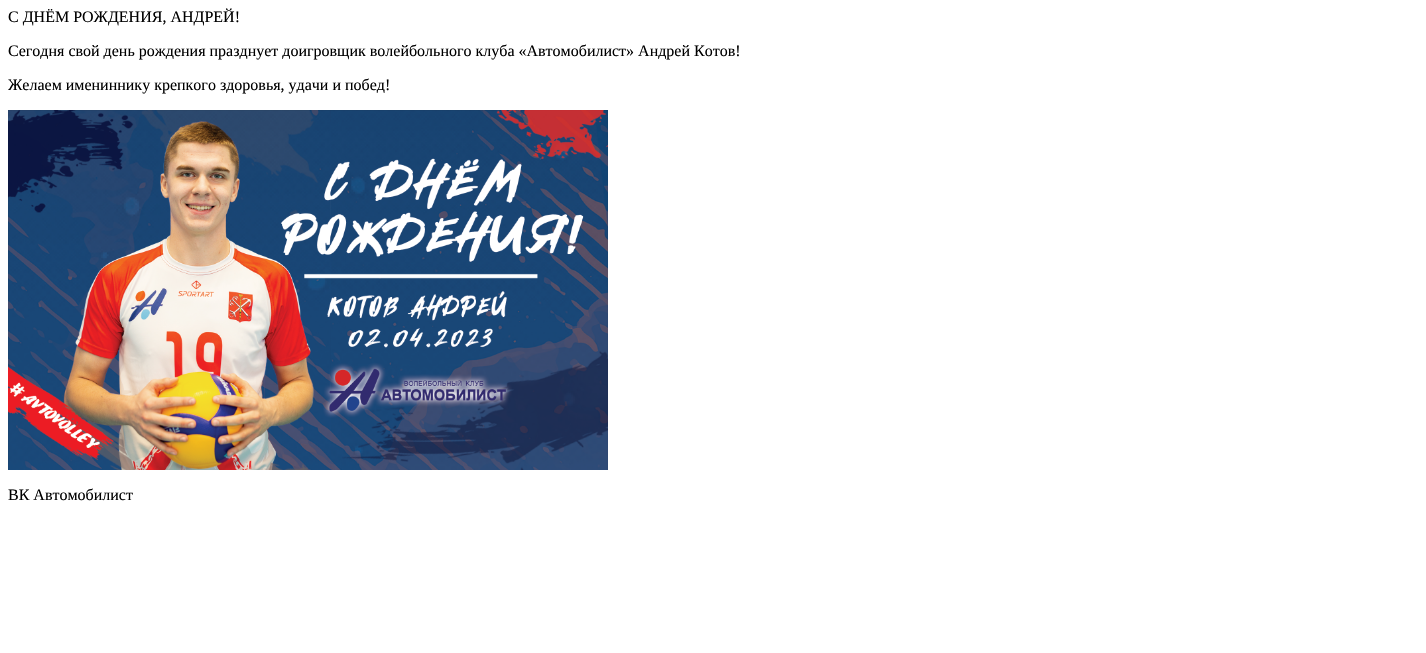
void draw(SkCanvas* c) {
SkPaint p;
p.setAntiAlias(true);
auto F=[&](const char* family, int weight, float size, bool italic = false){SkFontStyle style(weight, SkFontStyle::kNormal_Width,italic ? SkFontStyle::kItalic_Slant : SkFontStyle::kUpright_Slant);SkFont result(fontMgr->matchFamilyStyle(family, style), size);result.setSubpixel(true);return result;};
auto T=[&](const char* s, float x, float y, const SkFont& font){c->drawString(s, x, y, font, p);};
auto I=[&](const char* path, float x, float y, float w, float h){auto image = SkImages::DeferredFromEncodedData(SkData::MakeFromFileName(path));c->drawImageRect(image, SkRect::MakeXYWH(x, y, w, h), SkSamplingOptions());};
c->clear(0xffffffff);
auto f1 = F("Liberation Serif",400,16);
p.setColor(0xff000000);
T("С ДНЁМ РОЖДЕНИЯ, АНДРЕЙ!",8,22,f1);
T("Сегодня свой день рождения празднует доигровщик волейбольного клуба «Автомобилист» Андрей Котов!",8,56,f1);
T("Желаем имениннику крепкого здоровья, удачи и побед!",8,90,f1);
I("1.png",8,110,600,360);
T("ВК Автомобилист",8,500,f1);
}
